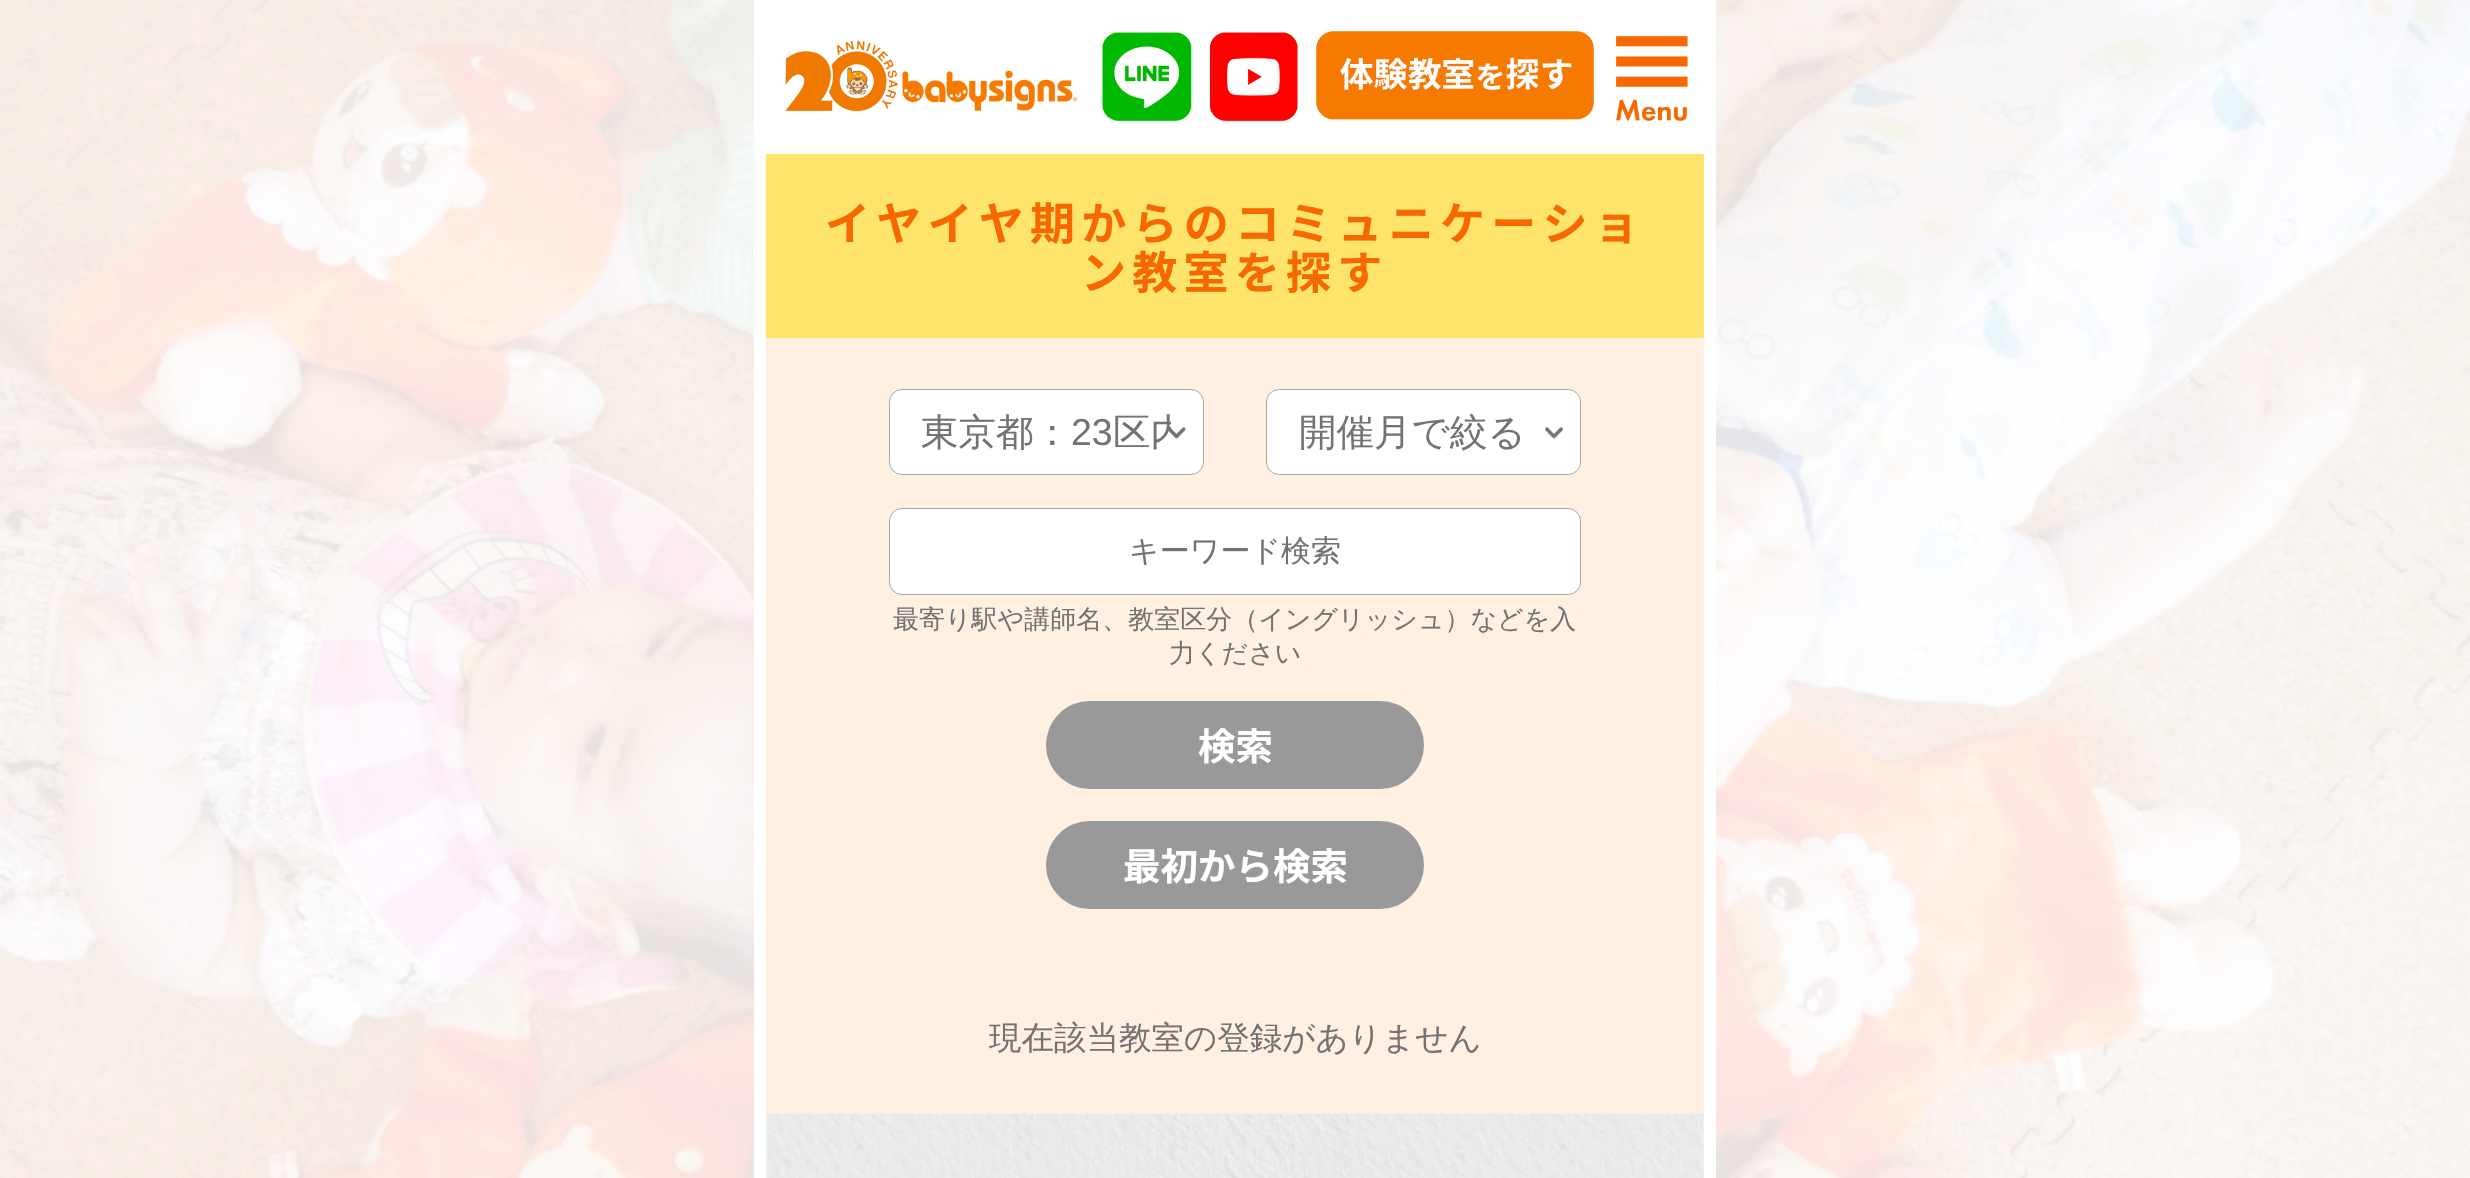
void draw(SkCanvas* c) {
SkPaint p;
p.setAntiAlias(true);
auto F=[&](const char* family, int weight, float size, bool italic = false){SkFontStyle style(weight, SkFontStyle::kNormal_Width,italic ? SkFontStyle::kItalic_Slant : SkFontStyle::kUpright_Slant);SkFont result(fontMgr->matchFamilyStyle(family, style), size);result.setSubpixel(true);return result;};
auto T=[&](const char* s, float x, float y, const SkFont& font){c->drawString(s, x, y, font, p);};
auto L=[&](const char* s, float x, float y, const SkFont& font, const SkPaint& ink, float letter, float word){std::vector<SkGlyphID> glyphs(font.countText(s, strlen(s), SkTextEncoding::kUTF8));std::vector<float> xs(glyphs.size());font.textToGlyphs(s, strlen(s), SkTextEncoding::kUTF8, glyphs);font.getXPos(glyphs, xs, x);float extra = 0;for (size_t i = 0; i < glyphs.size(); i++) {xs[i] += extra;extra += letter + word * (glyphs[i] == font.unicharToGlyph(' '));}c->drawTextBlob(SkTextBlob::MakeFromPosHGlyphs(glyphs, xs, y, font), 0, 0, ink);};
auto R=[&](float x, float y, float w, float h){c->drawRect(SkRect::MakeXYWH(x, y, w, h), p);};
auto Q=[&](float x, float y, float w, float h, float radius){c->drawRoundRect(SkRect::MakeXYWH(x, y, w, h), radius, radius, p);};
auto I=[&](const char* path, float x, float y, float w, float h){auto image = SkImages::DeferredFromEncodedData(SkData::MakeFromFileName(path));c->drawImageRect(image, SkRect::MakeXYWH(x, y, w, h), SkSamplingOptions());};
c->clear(0xffffffff);
I("1.png",0,0,2470,1178);
p.setColor(0xffffffff);
R(754,0,962,1178);
I("2.png",785,40,292,72);
I("3.png",1102,32,90,90);
I("4.png",1210,32,88,90);
I("5.png",1316,31,278,89);
I("6.png",1616,36,72,86);
p.setColor(0xfffee46b);
R(766,154,938,184);
auto f1 = F("Noto Sans JP",700,45);
p.setColor(0xfff76900);
L("イヤイヤ期からのコミュニケーショ",825,240,f1,p,6.25,0);
L("ン教室を探す",1081,289,f1,p,6.25,0);
p.setColor(0xfffff0e1);
R(766,338,938,776);
p.setColor(0xffffffff);
Q(889,389,315,86,13);
I("7.png",1167,427,19,12);
p.setStroke(true);
p.setStrokeWidth(1);
p.setColor(0xffa6a6a6);
c->drawRoundRect(SkRect::MakeXYWH(889.5,389.5,314,85),12.5,12.5,p);
auto f2 = F("WenQuanYi Zen Hei",500,37.5);
p.setStroke(false);
p.setColor(0xff737373);
T("東京都：",921,445,f2);
auto f3 = F("Liberation Sans",400,37.5);
T("23",1071,445,f3);
c->save();
c->clipRect(SkRect::MakeXYWH(921,411,250,42));
T("区内",1113,445,f2);
c->restore();
p.setColor(0xffffffff);
Q(1266,389,315,86,13);
I("8.png",1545,427,19,12);
p.setStroke(true);
p.setColor(0xffa6a6a6);
c->drawRoundRect(SkRect::MakeXYWH(1266.5,389.5,314,85),12.5,12.5,p);
p.setStroke(false);
p.setColor(0xff737373);
T("開催月で絞る",1299,445,f2);
p.setColor(0xffffffff);
c->drawRoundRect(SkRect::MakeXYWH(889.5,508.5,691,86),12.5,12.5,p);
p.setStroke(true);
p.setColor(0xffa6a6a6);
c->drawRoundRect(SkRect::MakeXYWH(889.5,508.5,691,86),12.5,12.5,p);
auto f4 = F("WenQuanYi Zen Hei",500,30);
p.setStroke(false);
p.setColor(0xff737373);
T("キーワード検索",1129,561,f4);
auto f5 = F("WenQuanYi Zen Hei",500,26);
T("最寄り駅や講師名、教室区分（イングリッシュ）などを入",893,628,f5);
T("力ください",1169,662,f5);
p.setColor(0xff999999);
Q(1046,701,378,88,44);
auto f6 = F("Noto Sans JP",700,37.5);
p.setColor(0xffffffff);
T("検索",1198,760,f6);
p.setColor(0xff999999);
Q(1046,821,378,88,44);
p.setColor(0xffffffff);
T("最初から検索",1123,880,f6);
auto f7 = F("WenQuanYi Zen Hei",500,32.5);
p.setColor(0xff737373);
T("現在該当教室の登録がありません",989,1049,f7);
I("9.png",766,1113,938,65);
}
